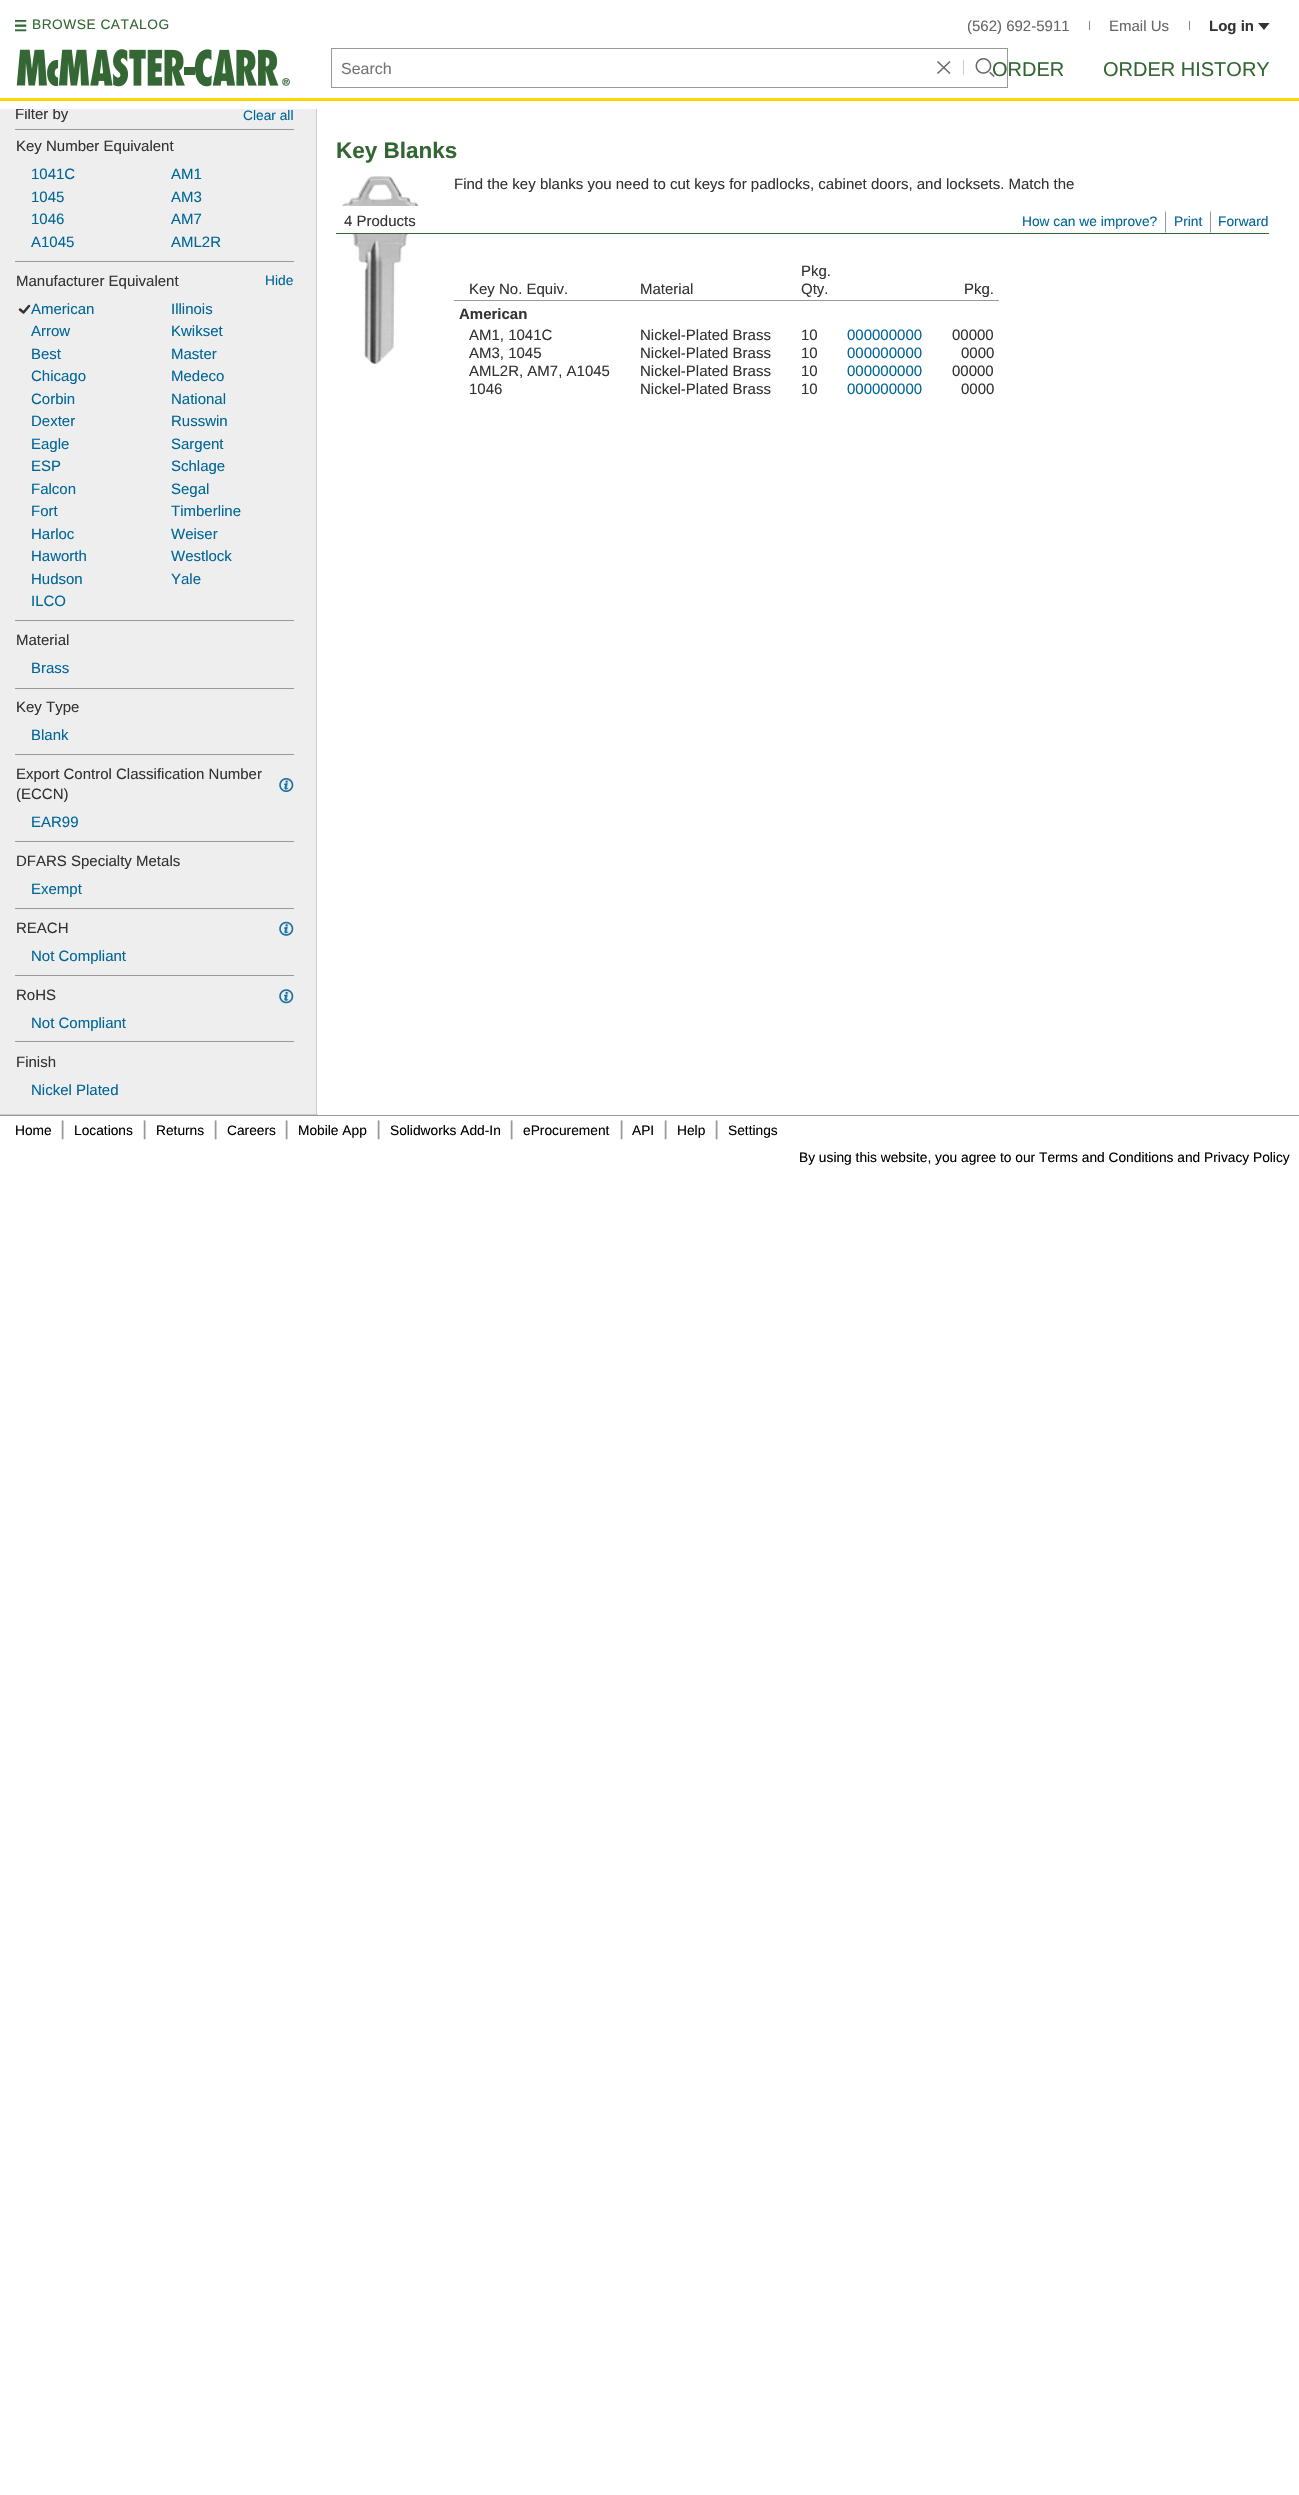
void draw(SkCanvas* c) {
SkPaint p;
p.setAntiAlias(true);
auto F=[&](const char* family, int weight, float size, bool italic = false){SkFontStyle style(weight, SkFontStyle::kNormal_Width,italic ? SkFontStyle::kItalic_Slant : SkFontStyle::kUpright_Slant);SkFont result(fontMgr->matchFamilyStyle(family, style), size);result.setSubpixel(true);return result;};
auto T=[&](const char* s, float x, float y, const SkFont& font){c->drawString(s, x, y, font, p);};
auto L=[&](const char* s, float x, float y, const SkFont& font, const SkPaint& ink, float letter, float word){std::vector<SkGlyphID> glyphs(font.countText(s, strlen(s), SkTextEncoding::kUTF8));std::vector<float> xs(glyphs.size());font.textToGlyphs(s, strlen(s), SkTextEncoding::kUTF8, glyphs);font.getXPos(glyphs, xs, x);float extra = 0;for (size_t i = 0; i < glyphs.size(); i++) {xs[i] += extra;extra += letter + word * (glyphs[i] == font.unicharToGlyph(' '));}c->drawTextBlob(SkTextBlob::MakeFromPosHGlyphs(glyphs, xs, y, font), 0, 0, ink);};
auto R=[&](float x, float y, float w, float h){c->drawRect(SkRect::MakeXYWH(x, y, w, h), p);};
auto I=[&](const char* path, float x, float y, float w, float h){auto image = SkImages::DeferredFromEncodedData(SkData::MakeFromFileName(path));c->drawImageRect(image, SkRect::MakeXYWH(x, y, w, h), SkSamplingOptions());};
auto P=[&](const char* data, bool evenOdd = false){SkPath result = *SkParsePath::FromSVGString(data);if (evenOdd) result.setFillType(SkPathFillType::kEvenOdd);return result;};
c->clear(0xffffffff);
p.setColor(0xffeeeeee);
R(0,109,316,1005);
auto f1 = F("Liberation Sans",400,15);
p.setColor(0xff333333);
T("Filter by",15,119,f1);
p.setColor(0xffffffff);
R(16,108,39,1);
p.setColor(0xfffed700);
R(0,98,1299,3);
I("1.png",15,20,12,12);
auto f2 = F("Liberation Sans",400,13.75);
p.setColor(0xff336633);
L("BROWSE CATALOG",32,29,f2,p,.5,0);
p.setColor(0xff666666);
T("(562) 692-5911",967,31,f1);
p.setColor(0xff878787);
R(1089,21,1,9);
p.setColor(0xff666666);
T("Email Us",1109,31,f1);
p.setColor(0xff878787);
R(1189,21,1,9);
auto f3 = F("Liberation Sans",700,15);
p.setColor(0xff333333);
T("Log in",1209,31,f3);
c->save();
c->clipRect(SkRect::MakeXYWH(1258,23,12,7));
c->drawPath(P("M1257.5 22.5l6.5 7.5l6-7.5z"),p);
c->restore();
I("2.png",16,49,274,38);
p.setStroke(true);
p.setStrokeWidth(1);
p.setColor(0xff999999);
c->drawRect(SkRect::MakeXYWH(331.5,48.5,676,39),p);
auto f4 = F("Liberation Sans",400,16);
p.setStroke(false);
p.setColor(0xff757575);
T("Search",341,74,f4);
p.setStroke(true);
p.setStrokeWidth(1.5);
p.setColor(0xff666666);
c->drawPath(P("M937.5 61.5l12.5 12m0-12l-12.5 12"),p);
p.setStroke(false);
p.setColor(0xffcbcbcb);
R(963,60,1,15);
I("3.png",975,58,20,19);
auto f5 = F("Liberation Sans",400,20);
p.setColor(0xff336633);
T("ORDER",992,76,f5);
T("ORDER HISTORY",1103,76,f5);
p.setColor(0xffcccccc);
R(316,109,1,1006);
R(0,1114,318,1);
p.setColor(0xff999999);
R(15,129,279,1);
p.setColor(0xff006699);
T("Clear all",243,120,f2);
p.setColor(0xff333333);
T("Key Number Equivalent",16,151,f1);
p.setColor(0xff006699);
T("1041C",31,179,f1);
T("1045",31,202,f1);
T("1046",31,224,f1);
T("A1045",31,247,f1);
T("AM1",171,179,f1);
T("AM3",171,202,f1);
T("AM7",171,224,f1);
T("AML2R",171,247,f1);
p.setColor(0xff999999);
R(15,261,279,1);
p.setColor(0xff333333);
T("Manufacturer Equivalent",16,286,f1);
p.setColor(0xff006699);
T("Hide",265,285,f2);
p.setStroke(true);
p.setStrokeWidth(2.5);
p.setStrokeCap(SkPaint::kRound_Cap);
p.setStrokeJoin(SkPaint::kRound_Join);
p.setColor(0xff333333);
c->drawPath(P("M20 309.5l3.5 3l5.5-6.5"),p);
p.setStroke(false);
p.setColor(0xff006699);
T("American",31,314,f1);
T("Arrow",31,336,f1);
T("Best",31,359,f1);
T("Chicago",31,381,f1);
T("Corbin",31,404,f1);
T("Dexter",31,426,f1);
T("Eagle",31,449,f1);
T("ESP",31,471,f1);
T("Falcon",31,494,f1);
T("Fort",31,516,f1);
T("Harloc",31,539,f1);
T("Haworth",31,561,f1);
T("Hudson",31,584,f1);
T("ILCO",31,606,f1);
T("Illinois",171,314,f1);
T("Kwikset",171,336,f1);
T("Master",171,359,f1);
T("Medeco",171,381,f1);
T("National",171,404,f1);
T("Russwin",171,426,f1);
T("Sargent",171,449,f1);
T("Schlage",171,471,f1);
T("Segal",171,494,f1);
T("Timberline",171,516,f1);
T("Weiser",171,539,f1);
T("Westlock",171,561,f1);
T("Yale",171,584,f1);
p.setColor(0xff999999);
R(15,620,279,1);
p.setColor(0xff333333);
T("Material",16,645,f1);
p.setColor(0xff006699);
T("Brass",31,673,f1);
p.setColor(0xff999999);
R(15,688,279,1);
p.setColor(0xff333333);
T("Key Type",16,712,f1);
p.setColor(0xff006699);
T("Blank",31,740,f1);
p.setColor(0xff999999);
R(15,754,279,1);
p.setColor(0xff333333);
T("Export Control Classification Number",16,779,f1);
T("(ECCN)",16,799,f1);
I("4.png",279,778,15,15);
p.setColor(0xff006699);
T("EAR99",31,827,f1);
p.setColor(0xff999999);
R(15,841,279,1);
p.setColor(0xff333333);
T("DFARS Specialty Metals",16,866,f1);
p.setColor(0xff006699);
T("Exempt",31,894,f1);
p.setColor(0xff999999);
R(15,908,279,1);
p.setColor(0xff333333);
T("REACH",16,933,f1);
I("5.png",279,921,15,15);
p.setColor(0xff006699);
T("Not Compliant",31,961,f1);
p.setColor(0xff999999);
R(15,975,279,1);
p.setColor(0xff333333);
T("RoHS",16,1000,f1);
I("6.png",279,989,15,15);
p.setColor(0xff006699);
T("Not Compliant",31,1028,f1);
p.setColor(0xff999999);
R(15,1041,279,1);
p.setColor(0xff333333);
T("Finish",16,1067,f1);
p.setColor(0xff006699);
T("Nickel Plated",31,1095,f1);
auto f6 = F("Liberation Sans",700,22.5);
p.setColor(0xff336633);
T("Key Blanks",336,158,f6);
I("7.png",341,176,78,188);
p.setColor(0xff333333);
T("Find the key blanks you need to cut keys for padlocks, cabinet doors, and locksets. Match the",454,189,f1);
T("Key No. Equiv.",469,294,f1);
T("Material",640,294,f1);
T("Pkg.",801,276,f1);
T("Qty.",801,294,f1);
T("Pkg.",964,294,f1);
p.setColor(0xff999999);
R(454,300,545,1);
p.setColor(0xff333333);
T("American",459,319,f3);
T("AM1, 1041C",469,340,f1);
T("Nickel-Plated Brass",640,340,f1);
T("10",801,340,f1);
p.setColor(0xff006699);
T("000000000",847,340,f1);
p.setColor(0xff333333);
T("00000",952,340,f1);
T("AM3, 1045",469,358,f1);
T("Nickel-Plated Brass",640,358,f1);
T("10",801,358,f1);
p.setColor(0xff006699);
T("000000000",847,358,f1);
p.setColor(0xff333333);
T("0000",961,358,f1);
T("AML2R, AM7, A1045",469,376,f1);
T("Nickel-Plated Brass",640,376,f1);
T("10",801,376,f1);
p.setColor(0xff006699);
T("000000000",847,376,f1);
p.setColor(0xff333333);
T("00000",952,376,f1);
T("1046",469,394,f1);
T("Nickel-Plated Brass",640,394,f1);
T("10",801,394,f1);
p.setColor(0xff006699);
T("000000000",847,394,f1);
p.setColor(0xff333333);
T("0000",961,394,f1);
p.setColor(0xff336633);
R(336,233,933,1);
p.setColor(0xffffffff);
R(341,206,78,27);
p.setColor(0xff333333);
T("4 Products",344,226,f1);
p.setColor(0xff999999);
c->drawPath(P("M1166 210v22.5h-1v-20z"),p);
p.setColor(0xff006699);
T("How can we improve?",1022,226,f2);
p.setColor(0xff999999);
c->drawPath(P("M1211 210v22.5h-1v-20z"),p);
p.setColor(0xff006699);
T("Print",1174,226,f2);
T("Forward",1218,226,f2);
p.setColor(0xff999999);
R(0,1115,1299,1);
p.setColor(0xff000000);
T("Home",15,1135,f2);
p.setColor(0xff999999);
T("|",60,1135,f5);
p.setColor(0xff000000);
T("Locations",74,1135,f2);
p.setColor(0xff999999);
T("|",142,1135,f5);
p.setColor(0xff000000);
T("Returns",156,1135,f2);
p.setColor(0xff999999);
T("|",213,1135,f5);
p.setColor(0xff000000);
T("Careers",227,1135,f2);
p.setColor(0xff999999);
T("|",284,1135,f5);
p.setColor(0xff000000);
T("Mobile App",298,1135,f2);
p.setColor(0xff999999);
T("|",376,1135,f5);
p.setColor(0xff000000);
T("Solidworks Add-In",390,1135,f2);
p.setColor(0xff999999);
T("|",509,1135,f5);
p.setColor(0xff000000);
T("eProcurement",523,1135,f2);
p.setColor(0xff999999);
T("|",619,1135,f5);
p.setColor(0xff000000);
T("API",632,1135,f2);
p.setColor(0xff999999);
T("|",663,1135,f5);
p.setColor(0xff000000);
T("Help",677,1135,f2);
p.setColor(0xff999999);
T("|",714,1135,f5);
p.setColor(0xff000000);
T("Settings",728,1135,f2);
T("By using this website, you agree to our Terms and Conditions and Privacy Policy",799,1162,f2);
}
